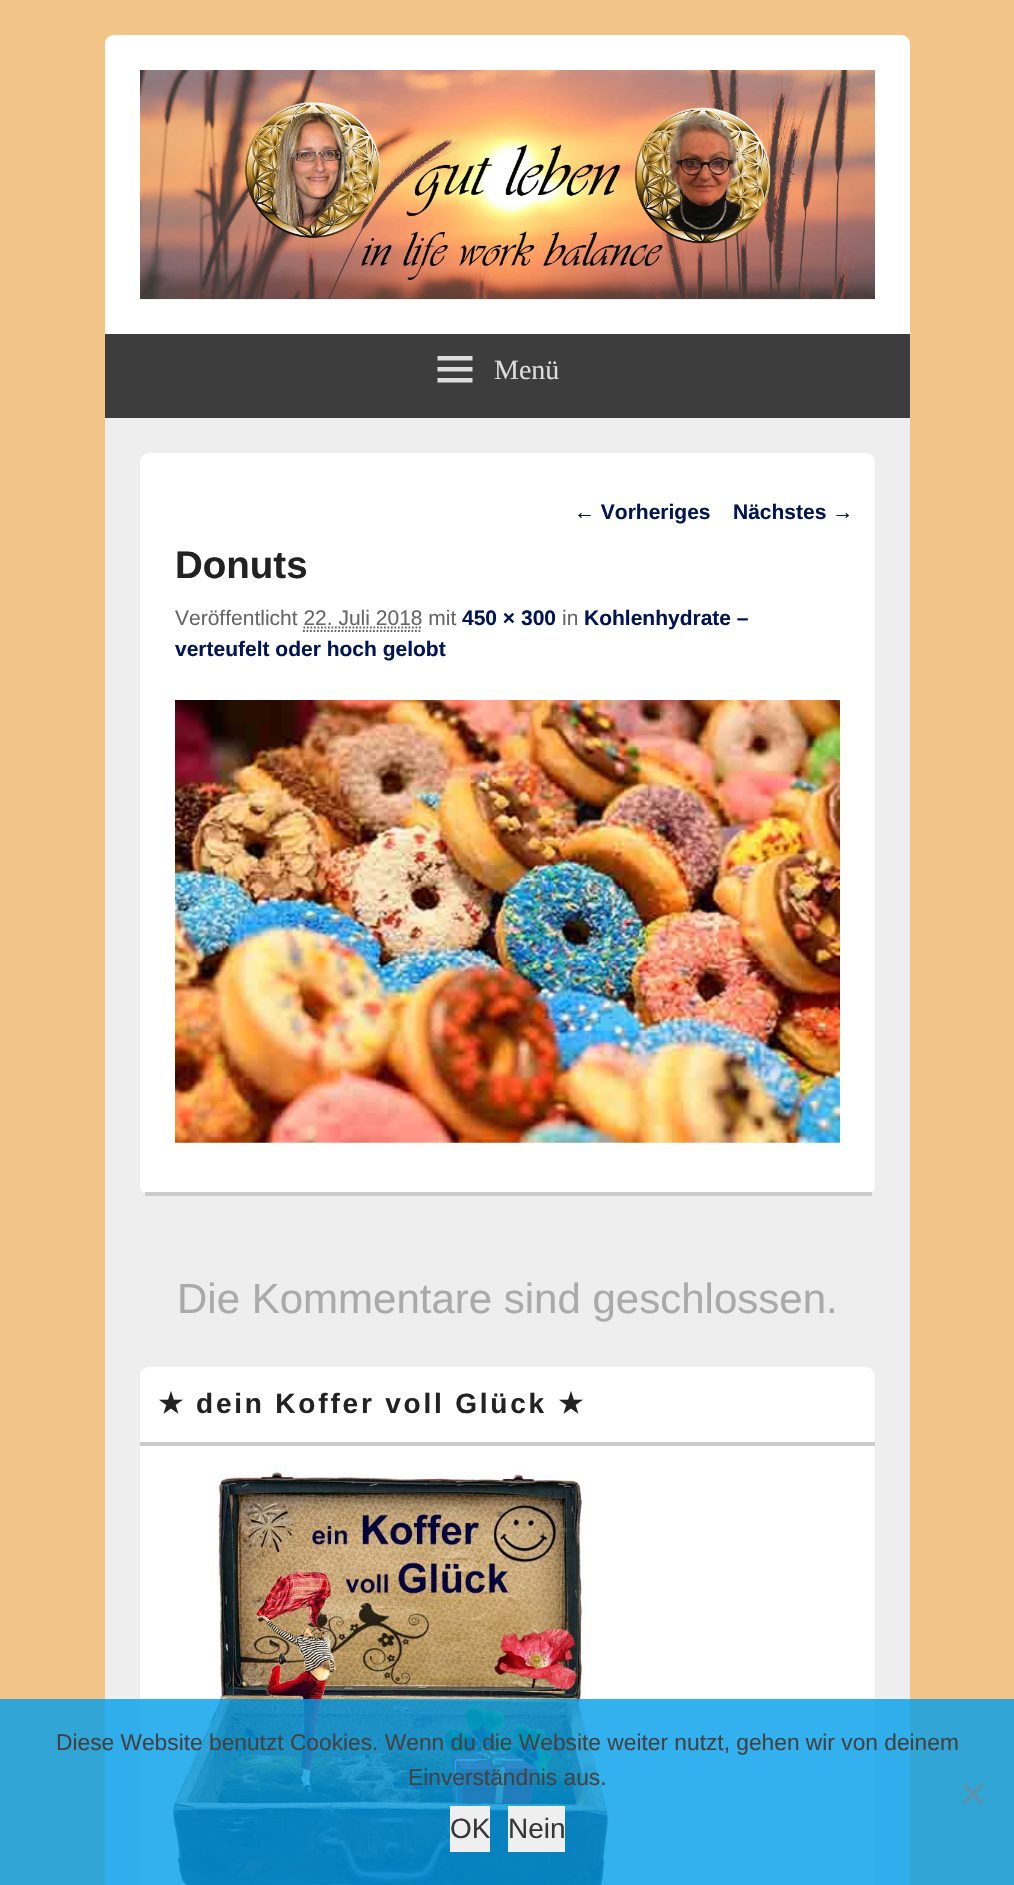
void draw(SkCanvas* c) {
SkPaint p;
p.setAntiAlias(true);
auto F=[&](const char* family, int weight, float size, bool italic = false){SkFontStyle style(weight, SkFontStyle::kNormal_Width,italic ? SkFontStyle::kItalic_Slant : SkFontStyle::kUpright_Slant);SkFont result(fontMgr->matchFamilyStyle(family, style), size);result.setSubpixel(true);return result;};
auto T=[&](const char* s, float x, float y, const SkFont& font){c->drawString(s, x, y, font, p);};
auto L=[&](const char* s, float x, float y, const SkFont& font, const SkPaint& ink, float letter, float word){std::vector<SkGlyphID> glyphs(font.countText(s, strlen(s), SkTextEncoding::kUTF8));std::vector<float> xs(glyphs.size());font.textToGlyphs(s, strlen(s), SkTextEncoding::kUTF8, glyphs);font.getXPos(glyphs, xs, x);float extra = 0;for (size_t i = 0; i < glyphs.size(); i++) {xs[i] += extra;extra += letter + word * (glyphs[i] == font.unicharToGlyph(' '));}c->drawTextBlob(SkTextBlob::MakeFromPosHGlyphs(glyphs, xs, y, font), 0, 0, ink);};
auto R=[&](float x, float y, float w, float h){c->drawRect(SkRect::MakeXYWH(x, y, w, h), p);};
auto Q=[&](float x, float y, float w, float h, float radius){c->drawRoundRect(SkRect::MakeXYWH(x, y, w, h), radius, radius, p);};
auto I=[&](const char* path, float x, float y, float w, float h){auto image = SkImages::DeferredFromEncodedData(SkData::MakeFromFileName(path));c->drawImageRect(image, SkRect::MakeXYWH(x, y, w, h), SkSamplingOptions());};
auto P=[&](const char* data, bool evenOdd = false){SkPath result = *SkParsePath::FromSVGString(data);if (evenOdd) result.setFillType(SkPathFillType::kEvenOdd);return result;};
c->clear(0xfff2c487);
p.setColor(0xffeeeeee);
Q(105,35,805,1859,9);
p.setColor(0xffffffff);
c->drawPath(P("M114 35h787c5 0 9 4 9 9v374h-805v-374c0-5 4-9 9-9z"),p);
I("1.png",140,70,735,230);
p.setColor(0xff3d3d3d);
R(105,334,805,84);
p.setColor(0xffdddddd);
c->drawPath(P("M437.5 382.5v-4.5h35v4.5zm0-26.5h35v4.5h-35zm0 15.5v-4.5h35v4.5z"),p);
auto f1 = F("Liberation Serif",400,28);
T("Menü",494,379,f1);
p.setColor(0xffffffff);
Q(140,453,735,742,9);
auto f2 = F("Liberation Sans",700,21);
p.setColor(0xff001551);
T("← Vorheriges",574,519,f2);
T("Nächstes →",733,519,f2);
p.setColor(0xffcccccc);
R(145,1192,727,4);
auto f3 = F("Liberation Sans",700,38.5);
p.setColor(0xff222222);
T("Donuts",175,578,f3);
auto f4 = F("Liberation Sans",400,21);
p.setColor(0xff666666);
T("Veröffentlicht 22. Juli 2018 mit",175,625,f4);
p.setColor(0xff001551);
T("450 × 300",462,625,f2);
p.setColor(0xff666666);
T("in",562,625,f4);
p.setColor(0xff001551);
T("Kohlenhydrate –",584,625,f2);
p.setStroke(true);
p.setStrokeWidth(1.8);
p.setColor(0xff666666);
p.setPathEffect(SkDashPathEffect::Make({{1.75f,1.75f}}, 0));
c->drawPath(P("M303.5 627.5h119"),p);
p.setPathEffect(nullptr);
p.setPathEffect(SkDashPathEffect::Make({{1.75f,1.75f}}, 0));
c->drawPath(P("M303 631h119"),p);
p.setPathEffect(nullptr);
p.setStroke(false);
p.setColor(0xff001551);
T("verteufelt oder hoch gelobt",175,656,f2);
I("2.png",175,700,665,443);
auto f5 = F("Liberation Sans",400,42);
p.setColor(0xffaaaaaa);
T("Die Kommentare sind geschlossen.",177,1313,f5);
p.setColor(0xffffffff);
Q(140,1367,735,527,9);
p.setColor(0xffcccccc);
R(140,1442,735,4);
auto f6 = F("DejaVu Sans",700,28);
p.setColor(0xff222222);
L("★",158,1413,f6,p,2.8,0);
auto f7 = F("Liberation Sans",700,28);
L("dein Koffer voll Glück",196,1413,f7,p,2.8,0);
L("★",558,1413,f6,p,2.8,0);
I("3.png",169,1463,446,422);
p.setColor(0xcc009cea);
R(0,1699,1014,186);
auto f8 = F("Liberation Sans",400,22.75);
p.setColor(0xff424242);
T("Diese Website benutzt Cookies. Wenn du die Website weiter nutzt, gehen wir von deinem",56,1750,f8);
T("Einverständnis aus.",408,1785,f8);
p.setColor(0xff5892ab);
c->drawPath(P("M981 1783.5l2.5 2.5l-18.5 18.5l-2.5-2.5z"),p);
c->drawPath(P("M962.5 1786l2.5-2.5l18.5 18.5l-2.5 2.5z"),p);
p.setColor(0xffefefef);
R(450,1806,40,46);
auto f9 = F("Liberation Sans",400,28);
p.setColor(0xff373737);
T("OK",450,1838,f9);
p.setColor(0xffefefef);
R(508,1806,57,46);
p.setColor(0xff373737);
T("Nein",508,1838,f9);
}
